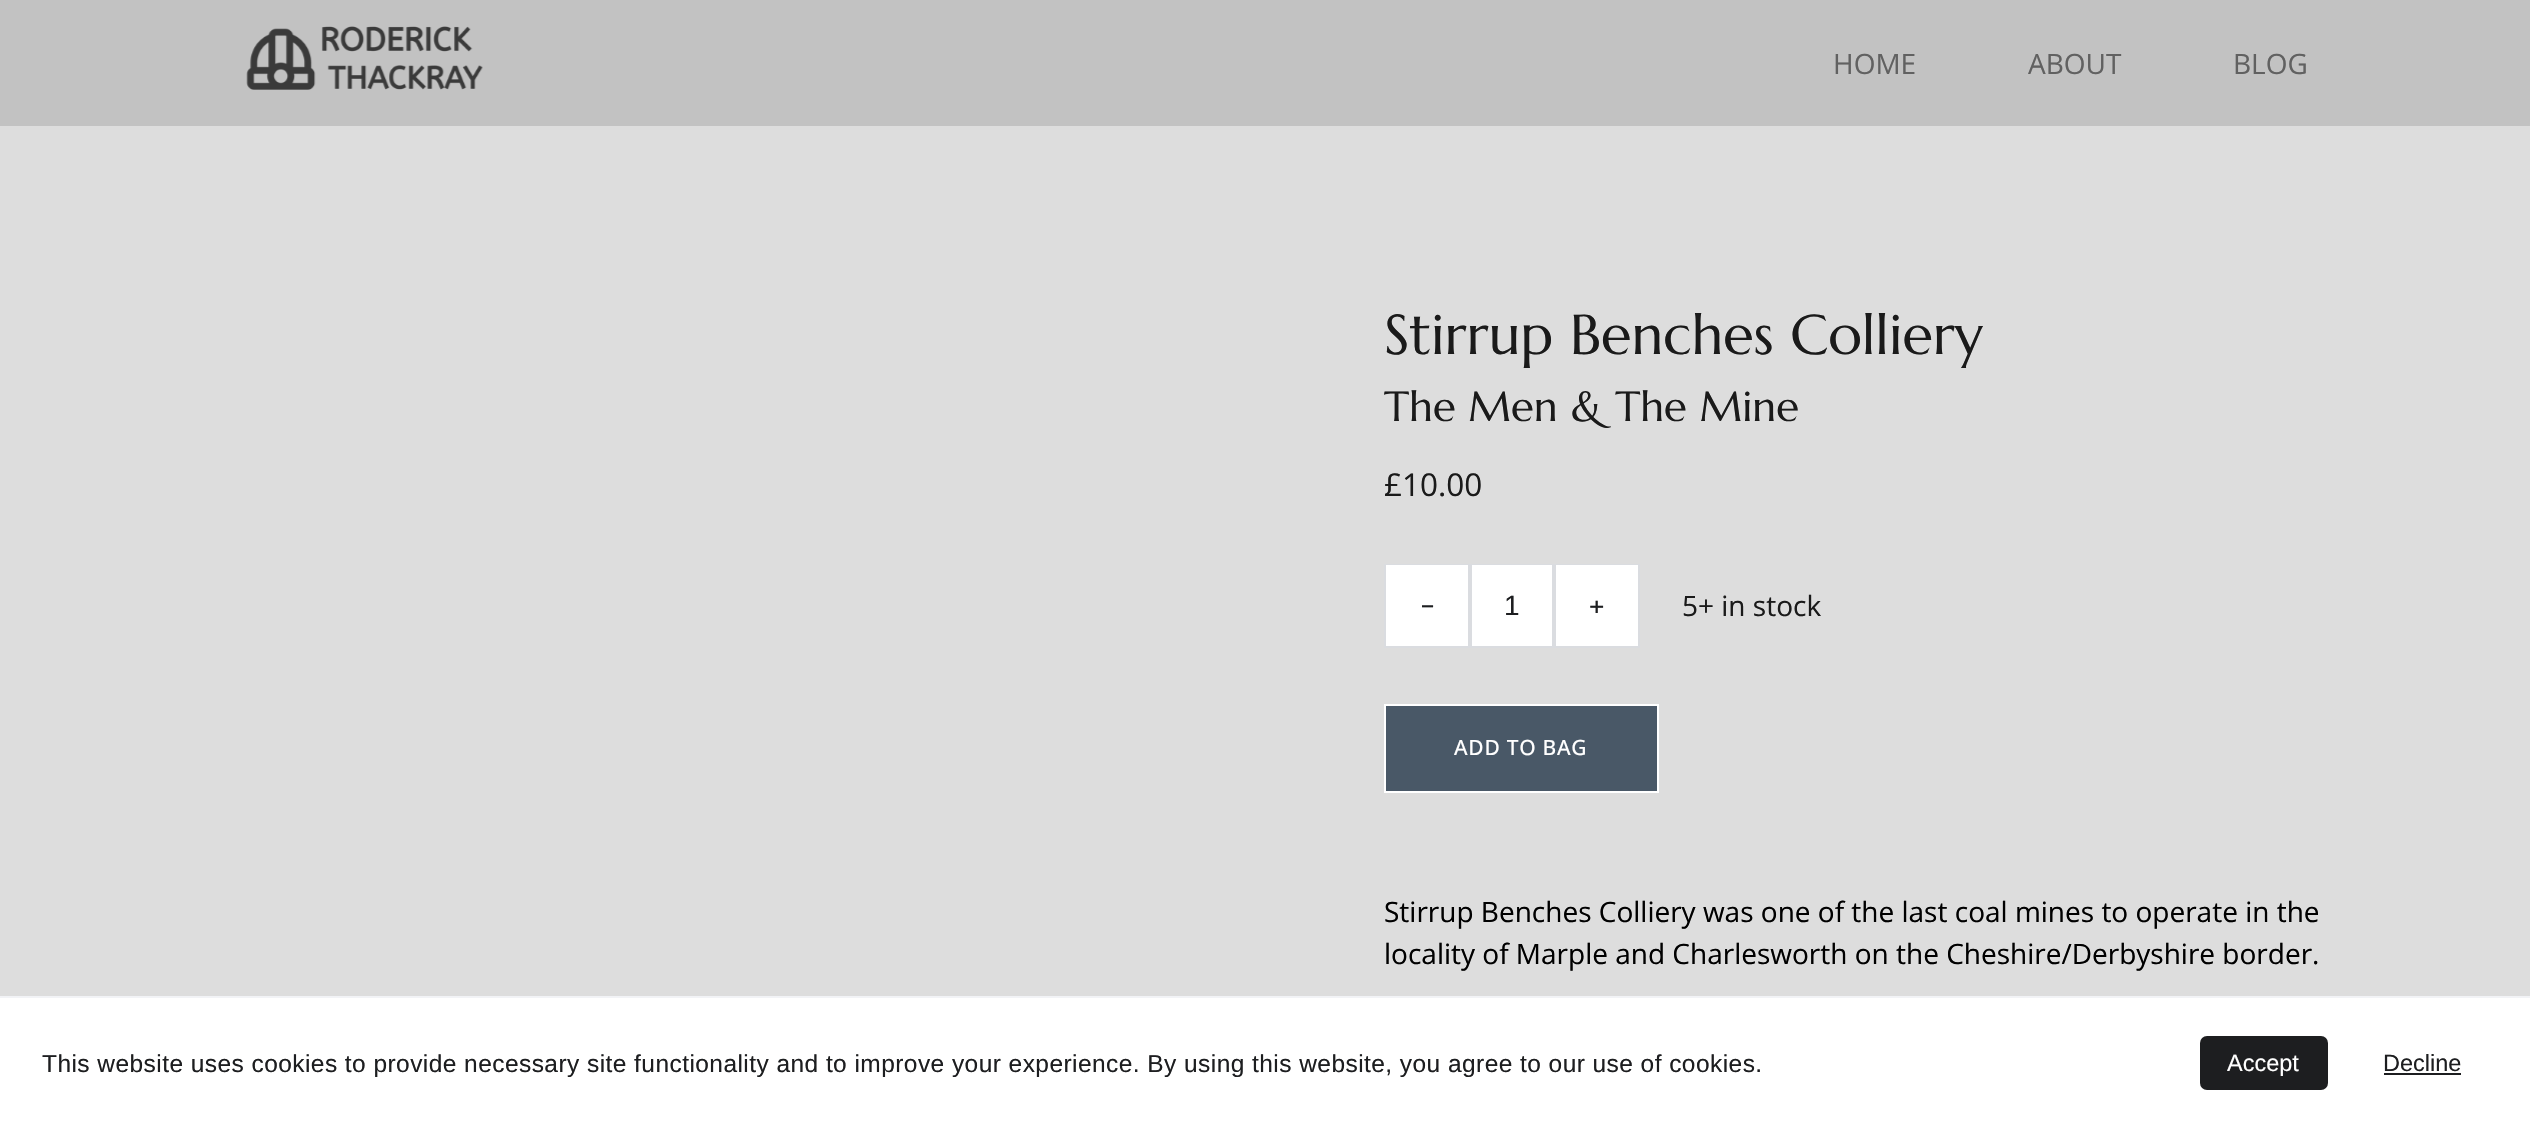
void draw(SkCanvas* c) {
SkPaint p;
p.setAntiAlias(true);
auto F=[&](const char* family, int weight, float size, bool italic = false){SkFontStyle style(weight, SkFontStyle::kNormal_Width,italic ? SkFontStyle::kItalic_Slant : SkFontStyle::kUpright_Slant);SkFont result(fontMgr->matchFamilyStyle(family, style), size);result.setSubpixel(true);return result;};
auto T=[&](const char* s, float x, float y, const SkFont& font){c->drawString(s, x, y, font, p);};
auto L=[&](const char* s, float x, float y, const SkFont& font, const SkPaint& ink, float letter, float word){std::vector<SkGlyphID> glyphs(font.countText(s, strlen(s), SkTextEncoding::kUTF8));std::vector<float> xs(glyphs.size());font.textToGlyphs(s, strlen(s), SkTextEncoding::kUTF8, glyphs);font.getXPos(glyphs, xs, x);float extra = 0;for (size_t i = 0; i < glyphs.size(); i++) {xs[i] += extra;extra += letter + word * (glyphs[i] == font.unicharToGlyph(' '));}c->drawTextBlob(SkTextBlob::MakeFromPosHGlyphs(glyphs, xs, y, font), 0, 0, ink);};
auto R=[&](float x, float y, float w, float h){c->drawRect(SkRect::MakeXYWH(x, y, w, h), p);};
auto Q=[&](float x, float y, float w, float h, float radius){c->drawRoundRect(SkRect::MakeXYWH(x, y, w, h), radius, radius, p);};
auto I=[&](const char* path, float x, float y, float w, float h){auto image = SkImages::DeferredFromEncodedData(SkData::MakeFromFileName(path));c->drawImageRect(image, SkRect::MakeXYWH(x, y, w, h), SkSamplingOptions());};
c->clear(0xffdddddd);
p.setColor(0xffc2c2c2);
R(0,0,2530,126);
I("1.png",246,26,237,64);
auto f1 = F("Open Sans",400,28);
p.setColor(0xff616161);
T("HOME",1833,74,f1);
T("ABOUT",2028,74,f1);
T("BLOG",2233,74,f1);
auto f2 = F("Marcellus",400,56);
p.setColor(0xff1a1a1a);
T("Stirrup Benches Colliery",1384,354,f2);
auto f3 = F("Marcellus",400,42);
T("The Men & The Mine",1384,421,f3);
auto f4 = F("Open Sans",400,31.5);
T("£10.00",1384,496,f4);
p.setStroke(true);
p.setStrokeWidth(2);
p.setColor(0xffdadce0);
c->drawRect(SkRect::MakeXYWH(1385,565,254,82),p);
p.setStroke(false);
p.setColor(0xffffffff);
R(1386,565,82,81);
p.setColor(0xffdadce0);
R(1468,565,4,81);
auto f5 = F("DM Sans",400,28);
p.setColor(0xff1d1e20);
T("-",1420,615,f5);
p.setColor(0xffffffff);
R(1472,565,80,81);
p.setColor(0xffdadce0);
R(1552,565,4,81);
auto f6 = F("Liberation Sans",400,28);
p.setColor(0xff1d1e20);
T("1",1504,615,f6);
p.setColor(0xffffffff);
R(1556,565,82,81);
p.setColor(0xff1d1e20);
T("+",1589,615,f5);
p.setColor(0xff1a1a1a);
T("5+ in stock",1682,616,f1);
p.setColor(0xff495867);
c->drawRect(SkRect::MakeXYWH(1385,705,273,87),p);
p.setStroke(true);
p.setColor(0xffffffff);
c->drawRect(SkRect::MakeXYWH(1385,705,273,87),p);
auto f7 = F("Open Sans",500,21);
p.setStroke(false);
L("ADD TO BAG",1454,755,f7,p,.75,0);
p.setColor(0xff000000);
T("Stirrup Benches Colliery was one of the last coal mines to operate in the",1384,922,f1);
T("locality of Marple and Charlesworth on the Cheshire/Derbyshire border.",1384,964,f1);
p.setColor(0xffffffff);
R(0,998,2530,130);
p.setColor(0xfff2f3f6);
R(0,996,2530,2);
auto f8 = F("Liberation Sans",400,24.5);
p.setColor(0xff1d1e20);
L("This website uses cookies to provide necessary site functionality and to improve your experience. By using this website, you agree to our use of cookies.",42,1072,f8,p,.44,0);
Q(2200,1036,128,54,7);
auto f9 = F("Liberation Sans",400,23.5);
p.setColor(0xffffffff);
T("Accept",2227,1071,f9);
p.setColor(0xff1d1e20);
T("Decline",2383,1071,f9);
R(2384,1073,77,2);
}
